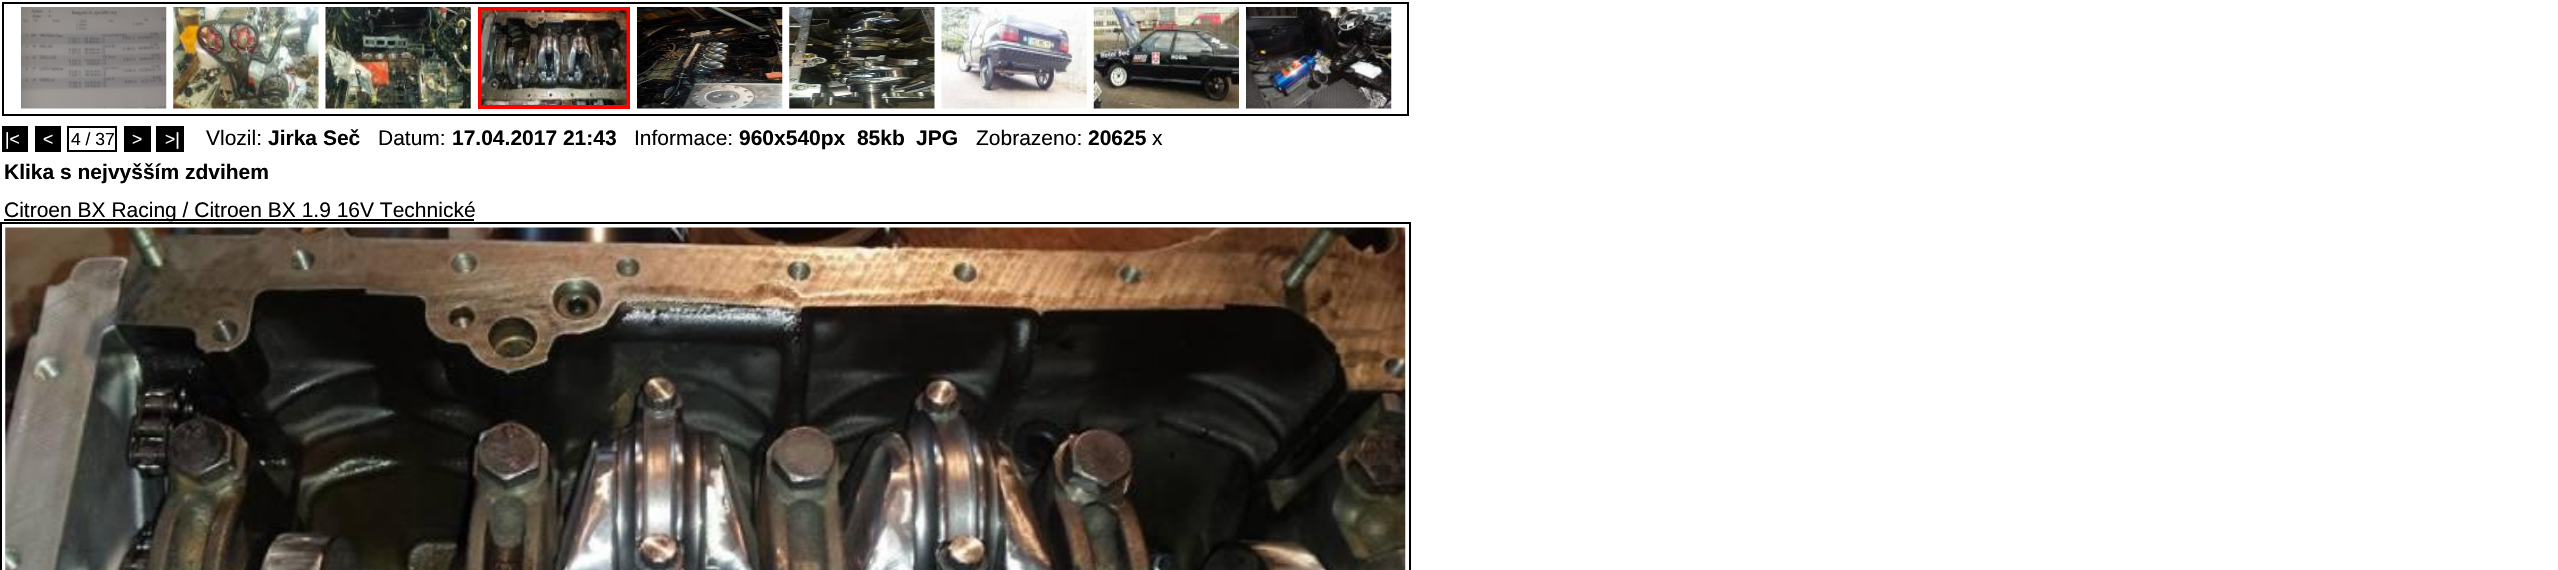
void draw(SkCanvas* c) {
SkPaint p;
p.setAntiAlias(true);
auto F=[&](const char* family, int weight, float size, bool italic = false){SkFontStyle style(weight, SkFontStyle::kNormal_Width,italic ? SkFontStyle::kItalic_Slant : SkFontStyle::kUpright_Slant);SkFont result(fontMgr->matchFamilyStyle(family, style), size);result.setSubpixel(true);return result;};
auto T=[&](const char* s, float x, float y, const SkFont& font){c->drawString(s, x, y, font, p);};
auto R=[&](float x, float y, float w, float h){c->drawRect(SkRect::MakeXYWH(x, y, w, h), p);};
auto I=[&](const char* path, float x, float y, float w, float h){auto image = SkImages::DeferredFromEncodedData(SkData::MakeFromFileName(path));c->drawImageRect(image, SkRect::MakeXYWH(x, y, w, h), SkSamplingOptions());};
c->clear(0xffffffff);
p.setStroke(true);
p.setStrokeWidth(2);
p.setColor(0xff000000);
c->drawRect(SkRect::MakeXYWH(3,3,1405,112),p);
I("1.png",21,7,146,102);
I("2.png",173,7,146,102);
I("3.png",325,7,146,102);
p.setStrokeWidth(4);
p.setColor(0xffff0000);
c->drawRect(SkRect::MakeXYWH(480,9,148,98),p);
I("4.png",637,7,146,102);
I("5.png",789,7,146,102);
I("6.png",941,7,146,102);
I("7.png",1093,7,146,102);
I("8.png",1246,7,146,102);
I("9.png",481,10,146,95);
p.setStroke(false);
p.setColor(0xff000000);
R(2,126,26,26);
auto f1 = F("Liberation Sans",400,17.5);
p.setColor(0xffffffff);
T("|<",5,145,f1);
p.setColor(0xff000000);
R(35,126,26,26);
p.setColor(0xffffffff);
T("<",43,145,f1);
p.setStroke(true);
p.setStrokeWidth(2);
p.setColor(0xff000000);
c->drawRect(SkRect::MakeXYWH(68,127,48,24),p);
p.setStroke(false);
T("4 / 37",71,145,f1);
R(124,126,27,26);
p.setColor(0xffffffff);
T(">",132,145,f1);
p.setColor(0xff000000);
R(156,126,28,26);
p.setColor(0xffffffff);
T(">|",165,145,f1);
auto f2 = F("Liberation Sans",400,21);
p.setColor(0xff000000);
T("Vlozil:",206,145,f2);
auto f3 = F("Liberation Sans",700,21);
T("Jirka Seč",268,145,f3);
T("Datum:",378,145,f2);
T("17.04.2017 21:43",452,145,f3);
T("Informace:",634,145,f2);
T("960x540px  85kb",739,145,f3);
T("JPG",916,145,f3);
T("Zobrazeno:",976,145,f2);
T("20625",1088,145,f3);
T("x",1152,145,f2);
T("Klika s nejvyšším zdvihem",4,179,f3);
R(4,219,470,2);
T("Citroen BX Racing / Citroen BX 1.9 16V Technické",4,217,f2);
p.setStroke(true);
c->drawRect(SkRect::MakeXYWH(1,223,1409,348),p);
I("10.png",5,227,1401,343);
}
